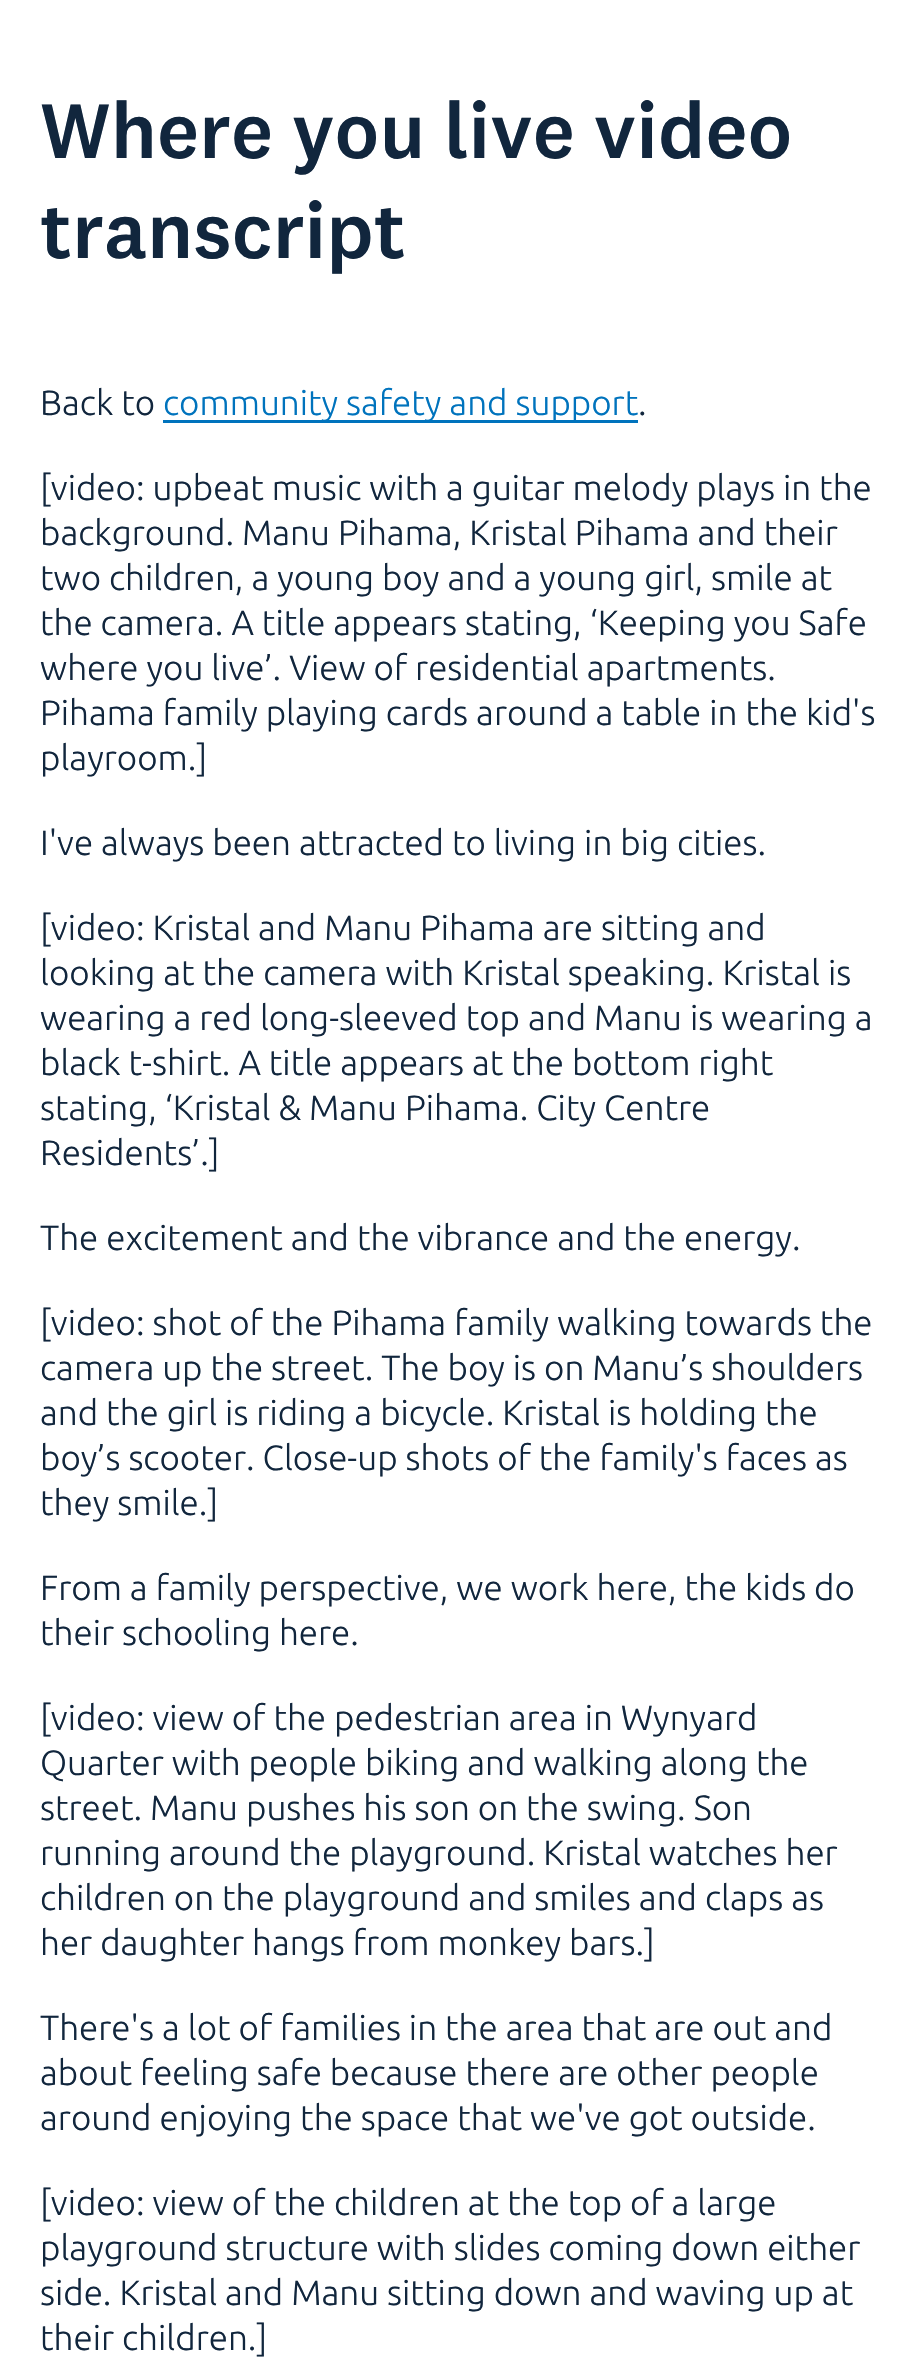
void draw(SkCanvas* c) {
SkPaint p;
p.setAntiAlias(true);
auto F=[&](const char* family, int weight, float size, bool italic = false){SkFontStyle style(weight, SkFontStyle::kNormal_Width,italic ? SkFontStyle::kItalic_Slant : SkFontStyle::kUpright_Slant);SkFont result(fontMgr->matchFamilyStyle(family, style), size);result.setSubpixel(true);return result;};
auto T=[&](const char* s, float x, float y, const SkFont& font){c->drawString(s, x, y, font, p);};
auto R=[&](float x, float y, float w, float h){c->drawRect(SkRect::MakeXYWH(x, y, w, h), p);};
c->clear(0xffffffff);
auto f1 = F("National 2",500,80);
p.setColor(0xff11263d);
T("Where you live video",40,158,f1);
T("transcript",40,258,f1);
auto f2 = F("Ubuntu",300,35);
T("Back to",40,415,f2);
p.setColor(0xff0073bd);
R(163,420,475,3);
T("community safety and support",163,415,f2);
p.setColor(0xff11263d);
T(".",638,415,f2);
T("[video: upbeat music with a guitar melody plays in the",40,500,f2);
T("background. Manu Pihama, Kristal Pihama and their",40,545,f2);
T("two children, a young boy and a young girl, smile at",40,590,f2);
T("the camera. A title appears stating, ‘Keeping you Safe",40,635,f2);
T("where you live’. View of residential apartments.",40,680,f2);
T("Pihama family playing cards around a table in the kid's",40,725,f2);
T("playroom.]",40,770,f2);
T("I've always been attracted to living in big cities.",40,855,f2);
T("[video: Kristal and Manu Pihama are sitting and",40,940,f2);
T("looking at the camera with Kristal speaking. Kristal is",40,985,f2);
T("wearing a red long-sleeved top and Manu is wearing a",40,1030,f2);
T("black t-shirt. A title appears at the bottom right",40,1075,f2);
T("stating, ‘Kristal & Manu Pihama. City Centre",40,1120,f2);
T("Residents’.]",40,1165,f2);
T("The excitement and the vibrance and the energy.",40,1250,f2);
T("[video: shot of the Pihama family walking towards the",40,1335,f2);
T("camera up the street. The boy is on Manu’s shoulders",40,1380,f2);
T("and the girl is riding a bicycle. Kristal is holding the",40,1425,f2);
T("boy’s scooter. Close-up shots of the family's faces as",40,1470,f2);
T("they smile.]",40,1515,f2);
T("From a family perspective, we work here, the kids do",40,1600,f2);
T("their schooling here.",40,1645,f2);
T("[video: view of the pedestrian area in Wynyard",40,1730,f2);
T("Quarter with people biking and walking along the",40,1775,f2);
T("street. Manu pushes his son on the swing. Son",40,1820,f2);
T("running around the playground. Kristal watches her",40,1865,f2);
T("children on the playground and smiles and claps as",40,1910,f2);
T("her daughter hangs from monkey bars.]",40,1955,f2);
T("There's a lot of families in the area that are out and",40,2040,f2);
T("about feeling safe because there are other people",40,2085,f2);
T("around enjoying the space that we've got outside.",40,2130,f2);
T("[video: view of the children at the top of a large",40,2215,f2);
T("playground structure with slides coming down either",40,2260,f2);
T("side. Kristal and Manu sitting down and waving up at",40,2305,f2);
T("their children.]",40,2350,f2);
}
